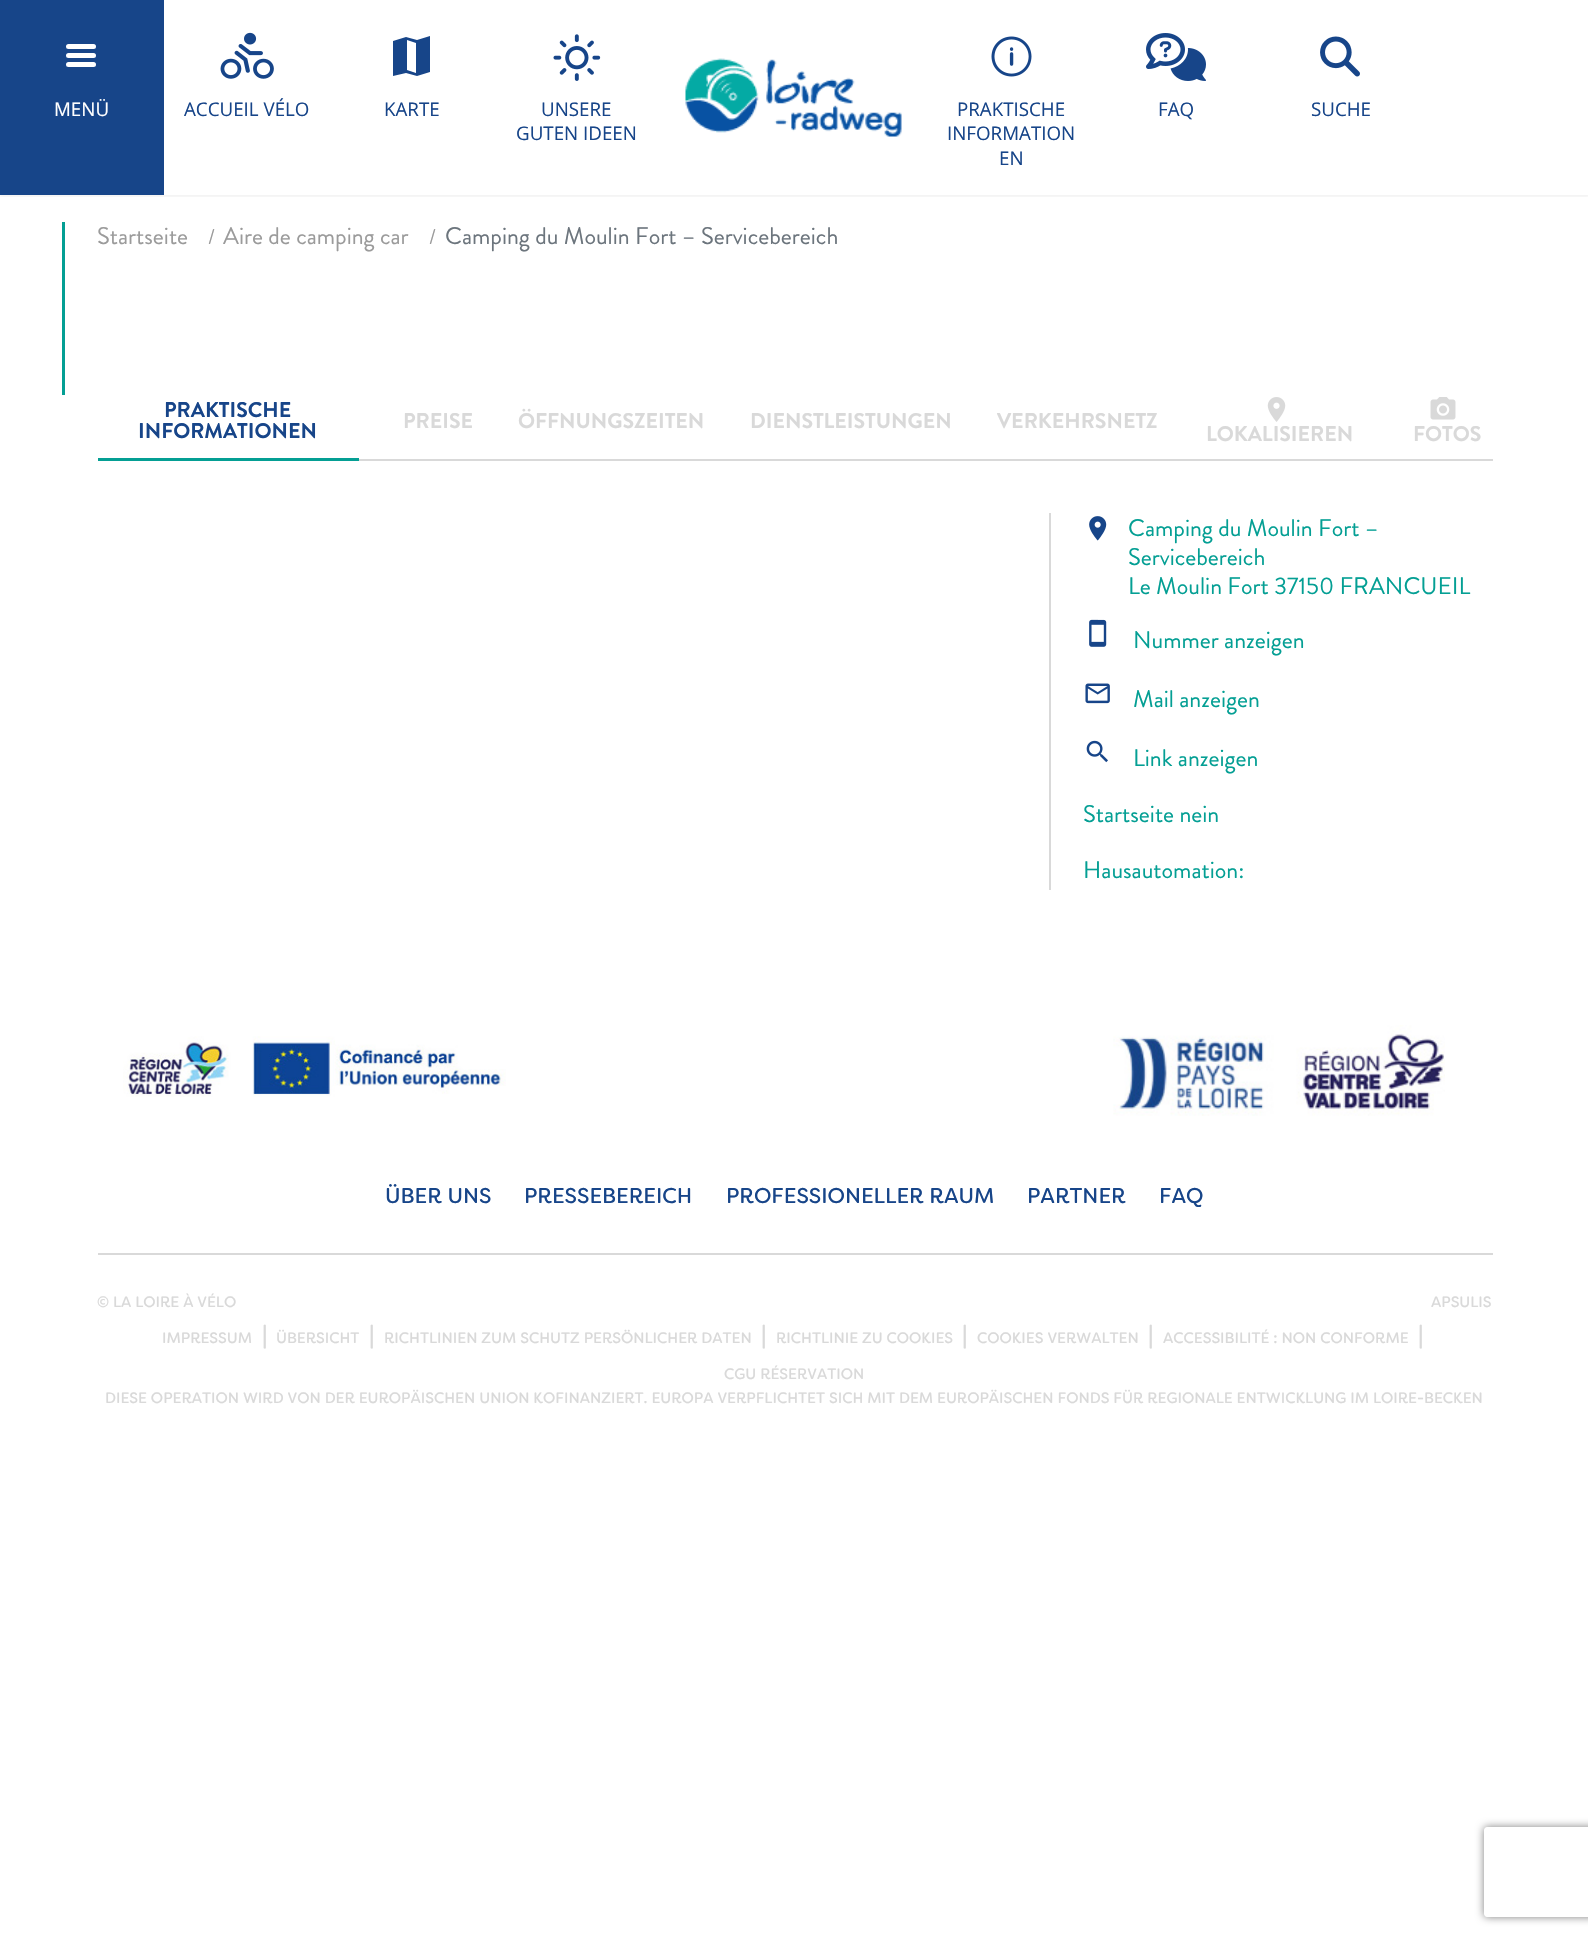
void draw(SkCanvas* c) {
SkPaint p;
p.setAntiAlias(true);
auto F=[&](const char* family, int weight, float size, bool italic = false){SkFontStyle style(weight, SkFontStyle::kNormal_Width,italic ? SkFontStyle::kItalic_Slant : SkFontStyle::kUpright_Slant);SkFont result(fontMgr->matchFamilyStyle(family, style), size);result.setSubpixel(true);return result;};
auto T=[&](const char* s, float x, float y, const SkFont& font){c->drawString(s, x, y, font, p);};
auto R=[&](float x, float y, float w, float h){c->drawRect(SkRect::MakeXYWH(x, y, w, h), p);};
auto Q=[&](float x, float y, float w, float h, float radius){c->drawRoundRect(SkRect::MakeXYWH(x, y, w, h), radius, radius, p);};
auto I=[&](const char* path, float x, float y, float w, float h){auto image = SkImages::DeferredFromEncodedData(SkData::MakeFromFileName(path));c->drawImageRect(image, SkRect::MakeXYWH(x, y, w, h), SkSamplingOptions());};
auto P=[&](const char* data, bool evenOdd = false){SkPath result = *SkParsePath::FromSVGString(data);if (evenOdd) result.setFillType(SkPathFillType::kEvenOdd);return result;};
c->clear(0xffffffff);
c->save();
c->clipRect(SkRect::MakeXYWH(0,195,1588,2));
p.setColor(0x0d000000);
p.setMaskFilter(SkMaskFilter::MakeBlur(kNormal_SkBlurStyle, 1.5));
c->drawRect(SkRect::MakeXYWH(0,2,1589,195),p);
p.setMaskFilter(nullptr);
c->restore();
p.setColor(0xff174589);
R(0,0,164,195);
p.setColor(0xffffffff);
Q(66,44,30,5,2.5);
Q(66,53,30,5,2.5);
Q(66,62,30,5,2.5);
auto f1 = F("Open Sans",400,18.75);
T("MENÜ",54,116,f1);
I("1.png",220,32,54,47);
p.setColor(0xff174589);
T("ACCUEIL VÉLO",184,116,f1);
c->drawPath(P("M430 36l-13 4l-11-3l-13 4v35l13-3l11 3l13-4zm-23 4l9 3v30l-9-3z"),p);
T("KARTE",384,116,f1);
I("2.png",553,34,48,47);
T("UNSERE",541,116,f1);
T("GUTEN IDEEN",516,140,f1);
I("3.png",685,58,217,79);
I("4.png",991,36,41,41);
T("PRAKTISCHE",957,116,f1);
T("INFORMATION",947,140,f1);
T("EN",999,165,f1);
I("5.png",1146,33,60,48);
T("FAQ",1158,116,f1);
I("6.png",1320,36,40,41);
T("SUCHE",1311,116,f1);
p.setColor(0xff049f94);
R(62,222,3,173);
auto f2 = F("Brandon Grotesque",400,24);
p.setColor(0xff9b9b9b);
T("Startseite",97,244,f2);
auto f3 = F("Brandon Grotesque",400,21.3);
T("/",208,244,f3);
T("Aire de camping car",223,244,f2);
T("/",429,244,f3);
p.setColor(0xff6c757d);
T("Camping du Moulin Fort – Servicebereich",445,244,f2);
p.setColor(0xffd9d9d9);
R(359,459,1134,2);
auto f4 = F("Brandon Grotesque",700,21.3);
p.setColor(0xff174589);
T("PRAKTISCHE",164,417,f4);
T("INFORMATIONEN",138,438,f4);
p.setColor(0xff049f94);
R(98,458,261,3);
p.setColor(0xffd9d9d9);
T("PREISE",403,428,f4);
T("ÖFFNUNGSZEITEN",518,428,f4);
T("DIENSTLEISTUNGEN",750,428,f4);
T("VERKEHRSNETZ",997,428,f4);
I("7.png",1267,397,19,25);
T("LOKALISIEREN",1206,441,f4);
I("8.png",1430,397,26,23);
T("FOTOS",1413,441,f4);
R(1049,513,2,377);
I("9.png",1089,516,18,25);
p.setColor(0xff049f94);
T("Camping du Moulin Fort –",1128,536,f2);
T("Servicebereich",1128,565,f2);
T("Le Moulin Fort 37150 FRANCUEIL",1128,594,f2);
I("10.png",1089,619,18,28);
T("Nummer anzeigen",1133,648,f2);
I("11.png",1085,683,25,21);
T("Mail anzeigen",1133,707,f2);
I("12.png",1086,740,22,23);
T("Link anzeigen",1133,766,f2);
T("Startseite nein",1083,822,f2);
T("Hausautomation:",1083,878,f2);
I("13.png",123,1036,383,61);
I("14.png",1113,1025,332,91);
auto f5 = F("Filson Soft",400,21.3);
p.setColor(0xff174589);
T("ÜBER UNS",385,1203,f5);
T("PRESSEBEREICH",524,1203,f5);
T("PROFESSIONELLER RAUM",726,1203,f5);
T("PARTNER",1027,1203,f5);
T("FAQ",1159,1203,f5);
p.setColor(0xffd9d9d9);
R(98,1253,1395,2);
auto f6 = F("Filson Soft",400,15);
T("© LA LOIRE À VÉLO",97,1307,f6);
T("APSULIS",1431,1307,f6);
T("IMPRESSUM",162,1343,f6);
auto f7 = F("Filson Soft",400,24);
T("|",262,1343,f7);
T("ÜBERSICHT",276,1343,f6);
T("|",369,1343,f7);
T("RICHTLINIEN ZUM SCHUTZ PERSÖNLICHER DATEN",384,1343,f6);
T("|",761,1343,f7);
T("RICHTLINIE ZU COOKIES",776,1343,f6);
T("|",962,1343,f7);
T("COOKIES VERWALTEN",977,1343,f6);
T("|",1148,1343,f7);
T("ACCESSIBILITÉ : NON CONFORME",1163,1343,f6);
T("|",1418,1343,f7);
T("CGU RÉSERVATION",724,1379,f6);
T("DIESE OPERATION WIRD VON DER EUROPÄISCHEN UNION KOFINANZIERT. EUROPA VERPFLICHTET SICH MIT DEM EUROPÄISCHEN FONDS FÜR REGIONALE ENTWICKLUNG IM LOIRE-BECKEN",105,1403,f6);
c->save();
c->clipPath(P("M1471 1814h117v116h-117zm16 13h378c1.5 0 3 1.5 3 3v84c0 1.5-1.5 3-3 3h-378c-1.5 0-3-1.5-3-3v-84c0-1.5 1.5-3 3-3z",true),true);
p.setColor(0xff808080);
p.setMaskFilter(SkMaskFilter::MakeBlur(kNormal_SkBlurStyle, 4));
c->drawRoundRect(SkRect::MakeXYWH(1484,1827,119,90),3,3,p);
p.setMaskFilter(nullptr);
c->restore();
}
